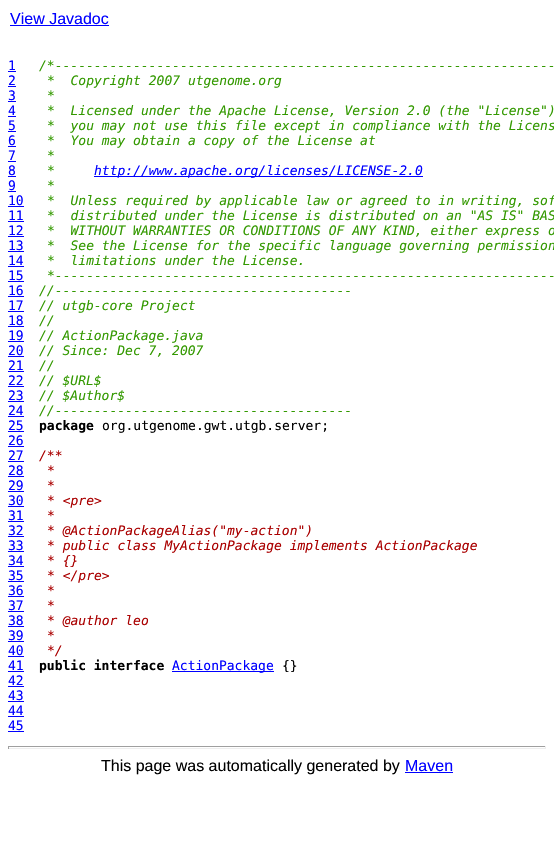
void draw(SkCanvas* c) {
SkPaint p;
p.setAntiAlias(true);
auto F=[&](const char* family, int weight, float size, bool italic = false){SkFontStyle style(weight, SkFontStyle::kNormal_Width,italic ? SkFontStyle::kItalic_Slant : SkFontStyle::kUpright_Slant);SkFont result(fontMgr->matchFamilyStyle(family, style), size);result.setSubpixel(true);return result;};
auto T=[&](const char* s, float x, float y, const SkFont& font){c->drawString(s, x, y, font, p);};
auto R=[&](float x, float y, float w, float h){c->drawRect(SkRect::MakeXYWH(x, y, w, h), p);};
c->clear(0xffffffff);
auto f1 = F("Liberation Sans",400,16);
p.setColor(0xff0000ff);
T("View Javadoc",10,24,f1);
R(10,25,99,1);
auto f2 = F("DejaVu Sans Mono",400,13);
T("1",8,70,f2);
R(8,71,8,1);
auto f3 = F("DejaVu Sans Mono",400,13,true);
p.setColor(0xff339900);
T("/*----------------------------------------------------------------",39,70,f3);
p.setColor(0xff0000ff);
T("2",8,85,f2);
R(8,86,8,1);
p.setColor(0xff339900);
T("*  Copyright 2007 utgenome.org",47,85,f3);
p.setColor(0xff0000ff);
T("3",8,100,f2);
R(8,101,8,1);
p.setColor(0xff339900);
T("*",47,100,f3);
p.setColor(0xff0000ff);
T("4",8,115,f2);
R(8,116,8,1);
p.setColor(0xff339900);
T("*  Licensed under the Apache License, Version 2.0 (the \"License\")",47,115,f3);
p.setColor(0xff0000ff);
T("5",8,130,f2);
R(8,131,8,1);
p.setColor(0xff339900);
T("*  you may not use this file except in compliance with the Licens",47,130,f3);
p.setColor(0xff0000ff);
T("6",8,145,f2);
R(8,146,8,1);
p.setColor(0xff339900);
T("*  You may obtain a copy of the License at",47,145,f3);
p.setColor(0xff0000ff);
T("7",8,160,f2);
R(8,161,8,1);
p.setColor(0xff339900);
T("*",47,160,f3);
p.setColor(0xff0000ff);
T("8",8,175,f2);
R(8,176,8,1);
p.setColor(0xff339900);
T("*",47,175,f3);
p.setColor(0xff0000ff);
R(94,176,329,1);
T("http://www.apache.org/licenses/LICENSE-2.0",94,175,f3);
T("9",8,190,f2);
R(8,191,8,1);
p.setColor(0xff339900);
T("*",47,190,f3);
p.setColor(0xff0000ff);
T("10",8,205,f2);
R(8,206,16,1);
p.setColor(0xff339900);
T("*  Unless required by applicable law or agreed to in writing, sof",47,205,f3);
p.setColor(0xff0000ff);
T("11",8,220,f2);
R(8,221,16,1);
p.setColor(0xff339900);
T("*  distributed under the License is distributed on an \"AS IS\" BAS",47,220,f3);
p.setColor(0xff0000ff);
T("12",8,235,f2);
R(8,236,16,1);
p.setColor(0xff339900);
T("*  WITHOUT WARRANTIES OR CONDITIONS OF ANY KIND, either express o",47,235,f3);
p.setColor(0xff0000ff);
T("13",8,250,f2);
R(8,251,16,1);
p.setColor(0xff339900);
T("*  See the License for the specific language governing permission",47,250,f3);
p.setColor(0xff0000ff);
T("14",8,265,f2);
R(8,266,16,1);
p.setColor(0xff339900);
T("*  limitations under the License.",47,265,f3);
p.setColor(0xff0000ff);
T("15",8,280,f2);
R(8,281,16,1);
p.setColor(0xff339900);
T("*----------------------------------------------------------------",47,280,f3);
p.setColor(0xff0000ff);
T("16",8,295,f2);
R(8,296,16,1);
p.setColor(0xff339900);
T("//--------------------------------------",39,295,f3);
p.setColor(0xff0000ff);
T("17",8,310,f2);
R(8,311,16,1);
p.setColor(0xff339900);
T("// utgb-core Project",39,310,f3);
p.setColor(0xff0000ff);
T("18",8,325,f2);
R(8,326,16,1);
p.setColor(0xff339900);
T("//",39,325,f3);
p.setColor(0xff0000ff);
T("19",8,340,f2);
R(8,341,16,1);
p.setColor(0xff339900);
T("// ActionPackage.java",39,340,f3);
p.setColor(0xff0000ff);
T("20",8,355,f2);
R(8,356,16,1);
p.setColor(0xff339900);
T("// Since: Dec 7, 2007",39,355,f3);
p.setColor(0xff0000ff);
T("21",8,370,f2);
R(8,371,16,1);
p.setColor(0xff339900);
T("//",39,370,f3);
p.setColor(0xff0000ff);
T("22",8,385,f2);
R(8,386,16,1);
p.setColor(0xff339900);
T("// $URL$",39,385,f3);
p.setColor(0xff0000ff);
T("23",8,400,f2);
R(8,401,16,1);
p.setColor(0xff339900);
T("// $Author$",39,400,f3);
p.setColor(0xff0000ff);
T("24",8,415,f2);
R(8,416,16,1);
p.setColor(0xff339900);
T("//--------------------------------------",39,415,f3);
p.setColor(0xff0000ff);
T("25",8,430,f2);
R(8,431,16,1);
auto f4 = F("DejaVu Sans Mono",700,13);
p.setColor(0xff000000);
T("package",39,430,f4);
T("org.utgenome.gwt.utgb.server;",102,430,f2);
p.setColor(0xff0000ff);
T("26",8,445,f2);
R(8,446,16,1);
T("27",8,460,f2);
R(8,461,16,1);
p.setColor(0xffaa0000);
T("/**",39,460,f3);
p.setColor(0xff0000ff);
T("28",8,475,f2);
R(8,476,16,1);
p.setColor(0xffaa0000);
T("*",47,475,f3);
p.setColor(0xff0000ff);
T("29",8,490,f2);
R(8,491,16,1);
p.setColor(0xffaa0000);
T("*",47,490,f3);
p.setColor(0xff0000ff);
T("30",8,505,f2);
R(8,506,16,1);
p.setColor(0xffaa0000);
T("* <pre>",47,505,f3);
p.setColor(0xff0000ff);
T("31",8,520,f2);
R(8,521,16,1);
p.setColor(0xffaa0000);
T("*",47,520,f3);
p.setColor(0xff0000ff);
T("32",8,535,f2);
R(8,536,16,1);
p.setColor(0xffaa0000);
T("* @ActionPackageAlias(\"my-action\")",47,535,f3);
p.setColor(0xff0000ff);
T("33",8,550,f2);
R(8,551,16,1);
p.setColor(0xffaa0000);
T("* public class MyActionPackage implements ActionPackage",47,550,f3);
p.setColor(0xff0000ff);
T("34",8,565,f2);
R(8,566,16,1);
p.setColor(0xffaa0000);
T("* {}",47,565,f3);
p.setColor(0xff0000ff);
T("35",8,580,f2);
R(8,581,16,1);
p.setColor(0xffaa0000);
T("* </pre>",47,580,f3);
p.setColor(0xff0000ff);
T("36",8,595,f2);
R(8,596,16,1);
p.setColor(0xffaa0000);
T("*",47,595,f3);
p.setColor(0xff0000ff);
T("37",8,610,f2);
R(8,611,16,1);
p.setColor(0xffaa0000);
T("*",47,610,f3);
p.setColor(0xff0000ff);
T("38",8,625,f2);
R(8,626,16,1);
p.setColor(0xffaa0000);
T("* @author leo",47,625,f3);
p.setColor(0xff0000ff);
T("39",8,640,f2);
R(8,641,16,1);
p.setColor(0xffaa0000);
T("*",47,640,f3);
p.setColor(0xff0000ff);
T("40",8,655,f2);
R(8,656,16,1);
p.setColor(0xffaa0000);
T("*/",47,655,f3);
p.setColor(0xff0000ff);
T("41",8,670,f2);
R(8,671,16,1);
p.setColor(0xff000000);
T("public interface",39,670,f4);
p.setColor(0xff0000ff);
R(172,671,102,1);
T("ActionPackage",172,670,f2);
p.setColor(0xff000000);
T("{}",282,670,f2);
p.setColor(0xff0000ff);
T("42",8,685,f2);
R(8,686,16,1);
T("43",8,700,f2);
R(8,701,16,1);
T("44",8,715,f2);
R(8,716,16,1);
T("45",8,730,f2);
R(8,731,16,1);
p.setColor(0xff9f9f9f);
R(8,746,538,1);
p.setColor(0xffeeeeee);
R(545,746,1,3);
R(8,748,538,1);
p.setColor(0xff9f9f9f);
R(8,746,1,3);
p.setColor(0xff000000);
T("This page was automatically generated by",101,771,f1);
p.setColor(0xff0000ff);
T("Maven",405,771,f1);
R(405,772,48,1);
}
